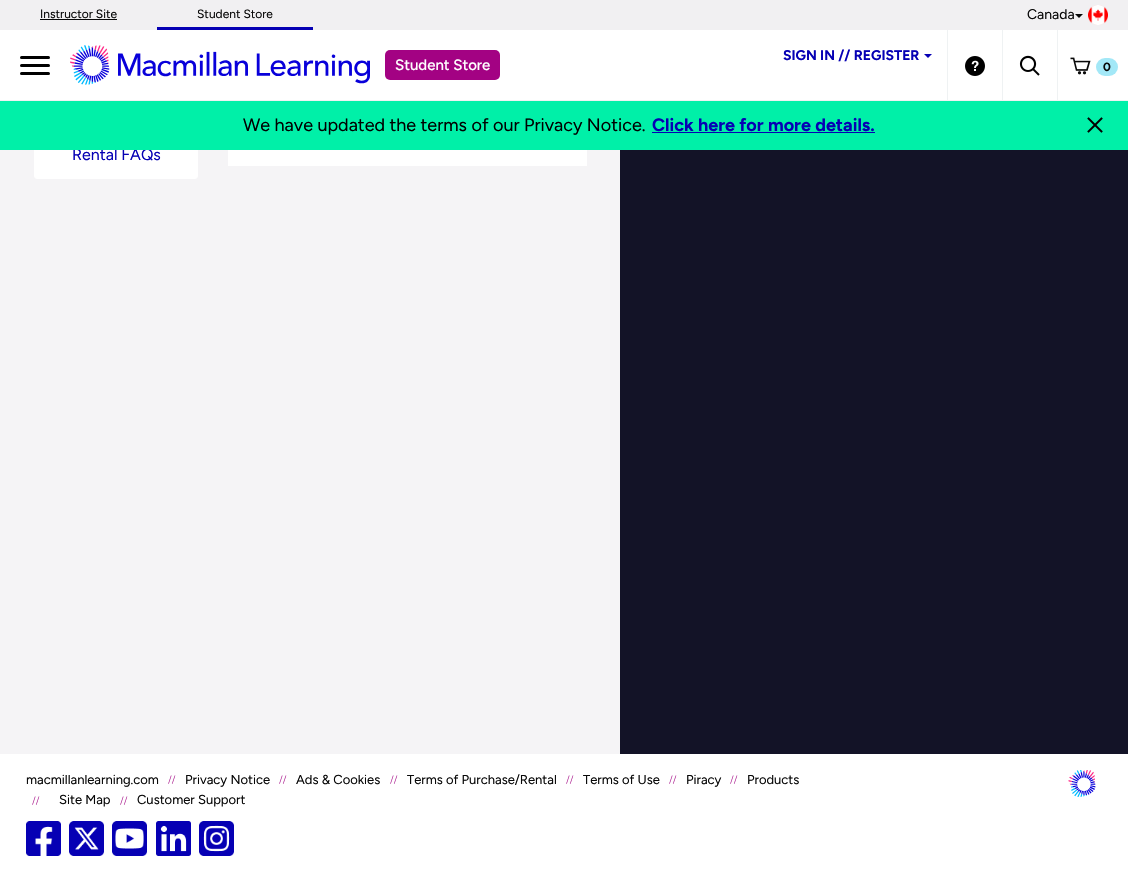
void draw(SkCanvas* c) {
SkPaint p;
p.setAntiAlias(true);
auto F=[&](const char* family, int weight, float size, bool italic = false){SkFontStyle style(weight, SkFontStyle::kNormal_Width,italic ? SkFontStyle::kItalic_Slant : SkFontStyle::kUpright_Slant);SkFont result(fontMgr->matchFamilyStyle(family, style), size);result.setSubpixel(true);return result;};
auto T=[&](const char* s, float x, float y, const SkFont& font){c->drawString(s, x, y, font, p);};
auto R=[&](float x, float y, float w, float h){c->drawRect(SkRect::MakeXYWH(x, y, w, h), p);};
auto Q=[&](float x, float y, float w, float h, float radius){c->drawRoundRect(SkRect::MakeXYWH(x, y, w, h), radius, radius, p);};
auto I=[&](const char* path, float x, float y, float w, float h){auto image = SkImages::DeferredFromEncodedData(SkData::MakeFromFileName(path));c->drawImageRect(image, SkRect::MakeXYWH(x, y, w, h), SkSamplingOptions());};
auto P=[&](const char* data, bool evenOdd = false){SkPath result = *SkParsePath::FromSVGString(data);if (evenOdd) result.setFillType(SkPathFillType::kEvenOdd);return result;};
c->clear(0xfff5f4f6);
p.setColor(0xffffffff);
R(0,30,1128,70);
p.setColor(0xffeff2f3);
R(0,100,1128,1);
p.setColor(0xfff1f0f2);
R(0,0,1128,30);
auto f1 = F("Figtree",400,12);
p.setColor(0xff080808);
T("Instructor Site",40,18,f1);
R(40,19,77,1);
p.setColor(0xff0600b4);
R(157,27,156,3);
p.setColor(0xff080808);
T("Student Store",197,18,f1);
auto f2 = F("Figtree",400,14);
T("Canada",1027,19,f2);
c->drawPath(P("M1075 14h8l-4 4z"),p);
I("1.png",1088,5,20,20);
p.setColor(0xff000000);
Q(20,56,30,3,1.5);
Q(20,64,30,3,1.5);
Q(20,72,30,3,1.5);
I("2.png",70,45,300,40);
p.setColor(0xffa30283);
Q(385,50,115,30,5);
auto f3 = F("Figtree",500,15);
p.setColor(0xffffffff);
T("Student Store",395,70,f3);
auto f4 = F("Figtree",700,14);
p.setColor(0xff0600b4);
T("SIGN IN // REGISTER",783,60,f4);
c->drawPath(P("M924 54h8l-4 4z"),p);
p.setColor(0xffeff2f3);
R(947,30,1,70);
I("3.png",965,56,20,20);
R(1002,30,1,70);
I("4.png",1019,55,21,21);
R(1057,30,1,70);
I("5.png",1070,57,21,18);
p.setColor(0xffa3e8f7);
Q(1096,58,22,18,9);
auto f5 = F("Figtree",700,12);
p.setColor(0xff080808);
T("0",1103,71,f5);
p.setColor(0xffffffff);
c->drawRoundRect(SkRect::MakeXYWH(34.5,131.5,163,47),2.5,2.5,p);
p.setStroke(true);
p.setStrokeWidth(1);
c->drawRoundRect(SkRect::MakeXYWH(34.5,131.5,163,47),2.5,2.5,p);
auto f6 = F("Figtree",400,16);
p.setStroke(false);
p.setColor(0xff0600b4);
T("Rental FAQs",72,160,f6);
p.setColor(0xffffffff);
R(228,150,359,16);
p.setColor(0xff131327);
R(620,150,508,604);
p.setColor(0xffffffff);
R(0,754,1128,120);
auto f7 = F("Figtree",400,13);
p.setColor(0xff080808);
T("macmillanlearning.com",26,784,f7);
auto f8 = F("Figtree",300,10);
p.setColor(0xffb5359c);
T("//",168,783,f8);
p.setColor(0xff080808);
T("Privacy Notice",185,784,f7);
p.setColor(0xffb5359c);
T("//",279,783,f8);
p.setColor(0xff080808);
T("Ads & Cookies",296,784,f7);
p.setColor(0xffb5359c);
T("//",390,783,f8);
p.setColor(0xff080808);
T("Terms of Purchase/Rental",407,784,f7);
p.setColor(0xffb5359c);
T("//",566,783,f8);
p.setColor(0xff080808);
T("Terms of Use",583,784,f7);
p.setColor(0xffb5359c);
T("//",669,783,f8);
p.setColor(0xff080808);
T("Piracy",686,784,f7);
p.setColor(0xffb5359c);
T("//",730,783,f8);
p.setColor(0xff080808);
T("Products",747,784,f7);
p.setColor(0xffb5359c);
T("//",32,804,f8);
p.setColor(0xff080808);
T("Site Map",59,804,f7);
p.setColor(0xffb5359c);
T("//",120,804,f8);
p.setColor(0xff080808);
T("Customer Support",137,804,f7);
I("6.png",1068,770,28,27);
I("7.png",26,821,35,35);
I("8.png",69,821,35,35);
I("9.png",112,821,35,35);
I("10.png",156,821,35,35);
I("11.png",199,821,35,35);
p.setColor(0xff00f0a8);
R(0,101,1128,49);
auto f9 = F("Figtree",400,18);
p.setColor(0xff000000);
T("We have updated the terms of our Privacy Notice.",243,131,f9);
auto f10 = F("Figtree",700,18);
p.setColor(0xff0600b4);
T("Click here for more details.",652,131,f10);
R(652,132,223,1);
I("12.png",1087,117,16,16);
}
